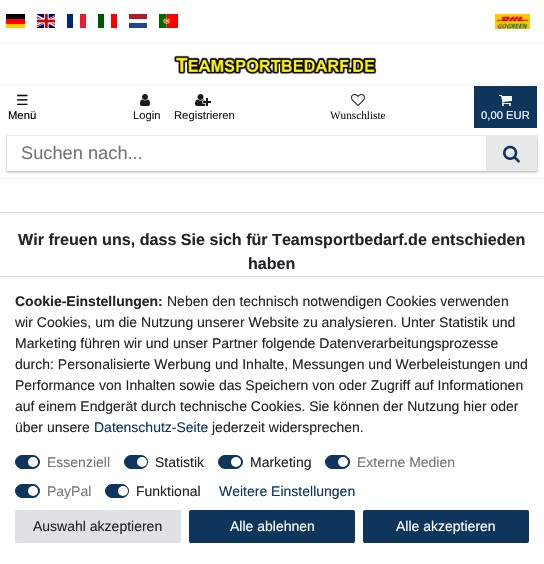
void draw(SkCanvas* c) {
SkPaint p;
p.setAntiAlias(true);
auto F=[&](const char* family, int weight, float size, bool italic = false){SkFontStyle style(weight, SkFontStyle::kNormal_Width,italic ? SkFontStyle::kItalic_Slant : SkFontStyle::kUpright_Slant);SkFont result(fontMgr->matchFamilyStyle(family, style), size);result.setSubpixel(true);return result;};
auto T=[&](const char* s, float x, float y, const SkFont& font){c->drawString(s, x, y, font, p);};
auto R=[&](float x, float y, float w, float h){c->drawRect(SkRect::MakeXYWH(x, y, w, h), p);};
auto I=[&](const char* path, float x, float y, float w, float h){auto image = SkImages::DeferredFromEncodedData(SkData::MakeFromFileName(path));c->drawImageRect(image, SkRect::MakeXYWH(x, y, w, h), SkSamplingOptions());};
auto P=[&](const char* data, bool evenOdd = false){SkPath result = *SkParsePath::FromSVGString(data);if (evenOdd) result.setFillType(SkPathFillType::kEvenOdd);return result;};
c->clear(0xffffffff);
p.setColor(0xfff3f3f3);
R(0,43,544,1);
p.setColor(0xffffcc00);
R(6,24,19,4);
p.setColor(0xff000000);
R(6,14,19,5);
p.setColor(0xffff0000);
R(6,19,19,5);
I("1.png",37,14,18,14);
p.setColor(0xff00267f);
R(67,14,6,14);
p.setColor(0xfff31830);
R(80,14,6,14);
p.setColor(0xff005700);
R(98,14,6,14);
p.setColor(0xfffc0000);
R(111,14,6,14);
p.setColor(0xff21468b);
R(129,23,18,5);
p.setColor(0xffae1c28);
R(129,14,18,5);
I("2.png",159,14,19,14);
I("3.png",495,14,35,15);
p.setColor(0xfff3f3f3);
R(0,178,544,1);
R(0,84,544,1);
I("4.png",174,55,203,20);
auto f1 = F("DejaVu Sans",400,14);
p.setColor(0xff000000);
T("☰",16,105,f1);
auto f2 = F("Liberation Sans",400,11.25);
T("Menü",8,119,f2);
I("5.png",140,94,10,12);
p.setColor(0xff191919);
T("Login",133,119,f2);
I("6.png",195,94,16,12);
T("Registrieren",174,119,f2);
I("7.png",351,94,14,12);
auto f3 = F("Liberation Serif",400,11.25);
T("Wunschliste",330,119,f3);
p.setColor(0xff0e355c);
R(474,86,63,42);
I("8.png",499,95,13,11);
p.setColor(0xffffffff);
T("0,00 EUR",481,119,f2);
p.setStroke(true);
p.setStrokeWidth(1);
p.setColor(0xffebebeb);
c->drawRect(SkRect::MakeXYWH(6.5,135.5,531,36),p);
c->save();
c->clipPath(P("M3 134h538v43h-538zm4 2h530v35h-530z",true),true);
p.setStroke(false);
p.setColor(0x29000000);
p.setMaskFilter(SkMaskFilter::MakeBlur(kNormal_SkBlurStyle, 1));
c->drawRect(SkRect::MakeXYWH(7,138,530,35),p);
p.setMaskFilter(nullptr);
c->restore();
auto f4 = F("Liberation Sans",400,18.25);
p.setColor(0xff757575);
T("Suchen nach...",21,159,f4);
p.setColor(0xffe8e8e8);
R(486,136,51,35);
I("9.png",503,145,17,18);
p.setColor(0xffdee2e6);
R(0,212,544,1);
p.setColor(0xffe3e0d9);
R(0,276,544,1);
auto f5 = F("Liberation Sans",700,16.1);
p.setColor(0xff212529);
T("Wir freuen uns, dass Sie sich für Teamsportbedarf.de entschieden",18,245,f5);
T("haben",248,269,f5);
auto f6 = F("Liberation Sans",700,14);
T("Cookie-Einstellungen:",15,306,f6);
auto f7 = F("Liberation Sans",400,14);
T("Neben den technisch notwendigen Cookies verwenden",167,306,f7);
T("wir Cookies, um die Nutzung unserer Website zu analysieren. Unter Statistik und",15,327,f7);
T("Marketing führen wir und unser Partner folgende Datenverarbeitungsprozesse",15,348,f7);
T("durch: Personalisierte Werbung und Inhalte, Messungen und Werbeleistungen und",15,369,f7);
T("Performance von Inhalten sowie das Speichern von oder Zugriff auf Informationen",15,390,f7);
T("auf einem Endgerät durch technische Cookies. Sie können der Nutzung hier oder",15,411,f7);
T("über unsere",15,432,f7);
p.setColor(0xff0e355c);
T("Datenschutz-Seite",94,432,f7);
p.setColor(0xff212529);
T("jederzeit widersprechen.",212,432,f7);
p.setColor(0xff0e355c);
c->drawRoundRect(SkRect::MakeXYWH(15.5,455.5,24,13),6.5,6.5,p);
p.setStroke(true);
c->drawRoundRect(SkRect::MakeXYWH(15.5,455.5,24,13),6.5,6.5,p);
p.setStroke(false);
p.setColor(0xff757575);
T("Essenziell",47,467,f7);
p.setColor(0xffffffff);
c->drawCircle(33,462,5,p);
p.setColor(0xff0e355c);
c->drawRoundRect(SkRect::MakeXYWH(124.5,455.5,23,13),6.5,6.5,p);
p.setStroke(true);
c->drawRoundRect(SkRect::MakeXYWH(124.5,455.5,23,13),6.5,6.5,p);
p.setStroke(false);
p.setColor(0xff212529);
T("Statistik",155,467,f7);
p.setColor(0xffffffff);
c->drawCircle(142,462,5,p);
p.setColor(0xff0e355c);
c->drawRoundRect(SkRect::MakeXYWH(218.5,455.5,24,13),6.5,6.5,p);
p.setStroke(true);
c->drawRoundRect(SkRect::MakeXYWH(218.5,455.5,24,13),6.5,6.5,p);
p.setStroke(false);
p.setColor(0xff212529);
T("Marketing",250,467,f7);
p.setColor(0xffffffff);
c->drawCircle(236,462,5,p);
p.setColor(0xff0e355c);
c->drawRoundRect(SkRect::MakeXYWH(325.5,455.5,24,13),6.5,6.5,p);
p.setStroke(true);
c->drawRoundRect(SkRect::MakeXYWH(325.5,455.5,24,13),6.5,6.5,p);
p.setStroke(false);
p.setColor(0xff757575);
T("Externe Medien",357,467,f7);
p.setColor(0xffffffff);
c->drawCircle(343,462,5,p);
p.setColor(0xff0e355c);
c->drawRoundRect(SkRect::MakeXYWH(15.5,484.5,24,13),6.5,6.5,p);
p.setStroke(true);
c->drawRoundRect(SkRect::MakeXYWH(15.5,484.5,24,13),6.5,6.5,p);
p.setStroke(false);
p.setColor(0xff757575);
T("PayPal",47,496,f7);
p.setColor(0xffffffff);
c->drawCircle(33,491,5,p);
p.setColor(0xff0e355c);
c->drawRoundRect(SkRect::MakeXYWH(105.5,484.5,23,13),6.5,6.5,p);
p.setStroke(true);
c->drawRoundRect(SkRect::MakeXYWH(105.5,484.5,23,13),6.5,6.5,p);
p.setStroke(false);
p.setColor(0xff212529);
T("Funktional",136,496,f7);
p.setColor(0xffffffff);
c->drawCircle(123,491,5,p);
p.setColor(0xff0e355c);
T("Weitere Einstellungen",219,496,f7);
p.setColor(0xffdee2e6);
c->drawRoundRect(SkRect::MakeXYWH(15.5,510.5,165,32),1,1,p);
p.setStroke(true);
c->drawRoundRect(SkRect::MakeXYWH(15.5,510.5,165,32),1,1,p);
p.setStroke(false);
p.setColor(0xff212529);
T("Auswahl akzeptieren",33,531,f7);
p.setColor(0xff0e355c);
c->drawRoundRect(SkRect::MakeXYWH(189.5,510.5,165,32),1,1,p);
p.setStroke(true);
c->drawRoundRect(SkRect::MakeXYWH(189.5,510.5,165,32),1,1,p);
p.setStroke(false);
p.setColor(0xffffffff);
T("Alle ablehnen",230,531,f7);
p.setColor(0xff0e355c);
c->drawRoundRect(SkRect::MakeXYWH(363.5,510.5,165,32),1,1,p);
p.setStroke(true);
c->drawRoundRect(SkRect::MakeXYWH(363.5,510.5,165,32),1,1,p);
p.setStroke(false);
p.setColor(0xffffffff);
T("Alle akzeptieren",396,531,f7);
}
